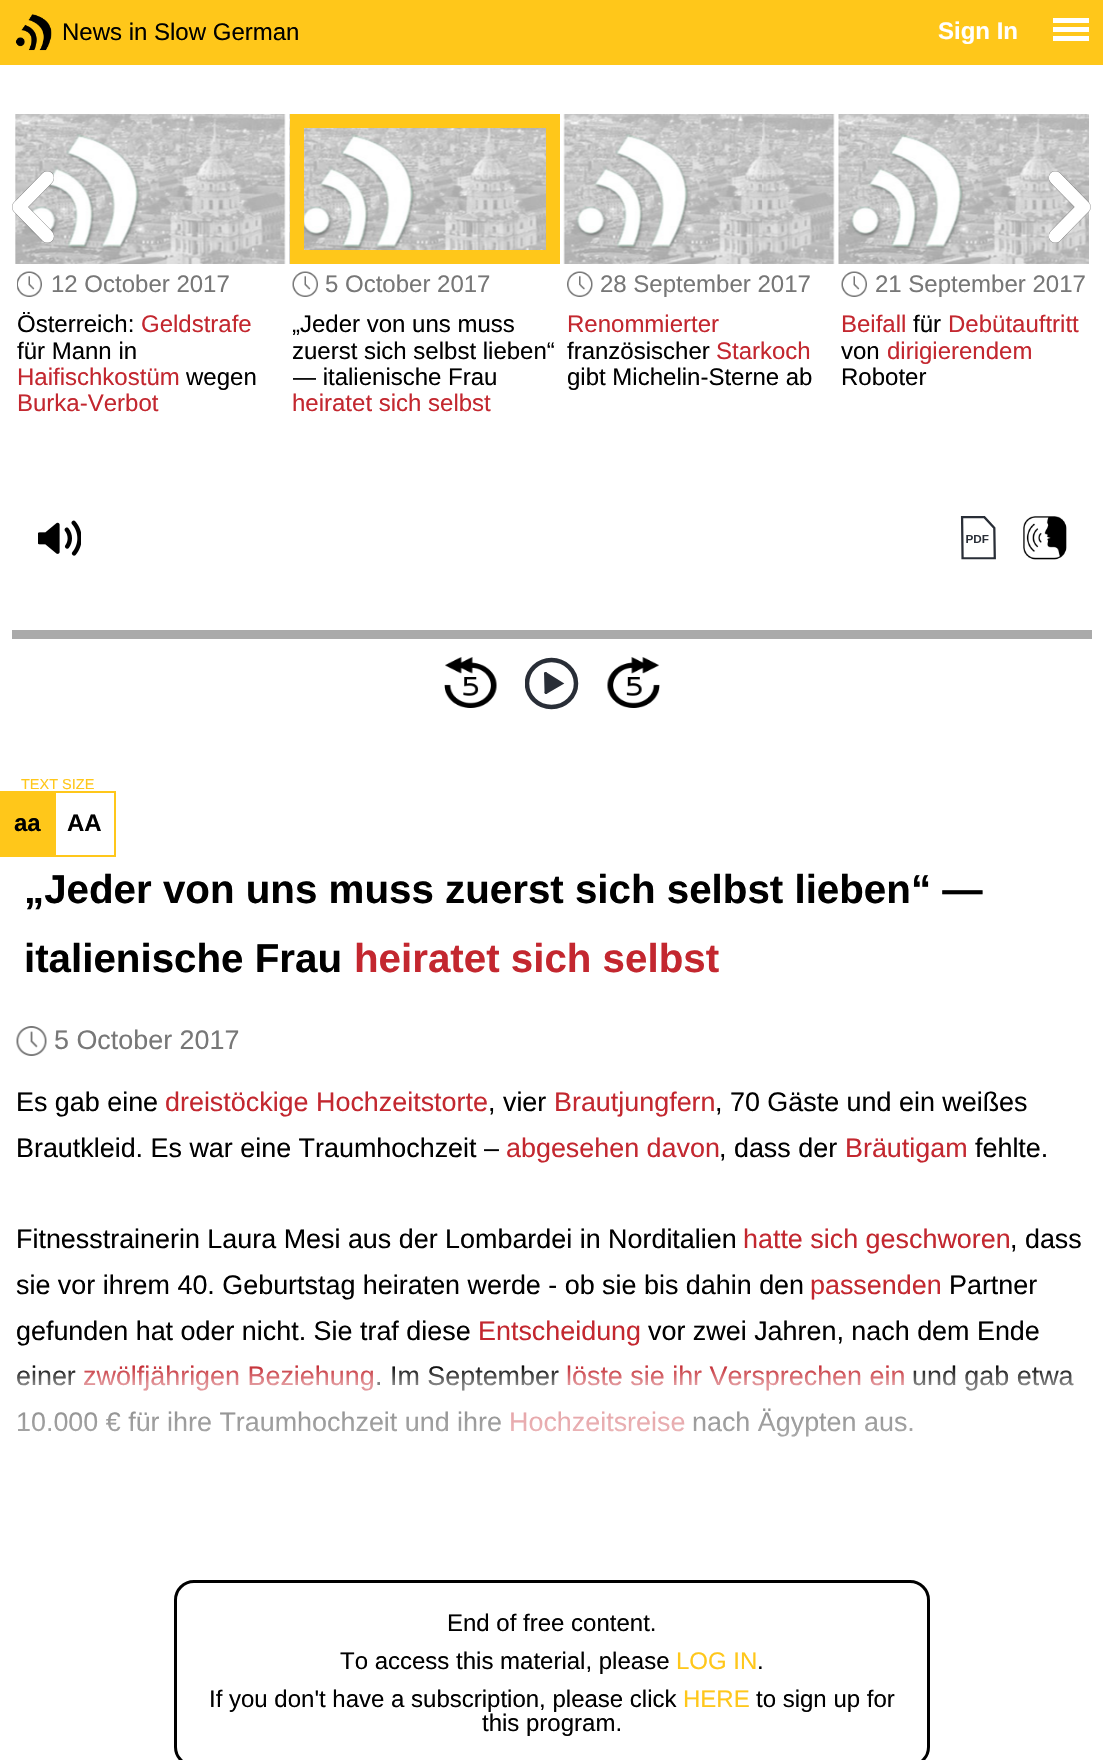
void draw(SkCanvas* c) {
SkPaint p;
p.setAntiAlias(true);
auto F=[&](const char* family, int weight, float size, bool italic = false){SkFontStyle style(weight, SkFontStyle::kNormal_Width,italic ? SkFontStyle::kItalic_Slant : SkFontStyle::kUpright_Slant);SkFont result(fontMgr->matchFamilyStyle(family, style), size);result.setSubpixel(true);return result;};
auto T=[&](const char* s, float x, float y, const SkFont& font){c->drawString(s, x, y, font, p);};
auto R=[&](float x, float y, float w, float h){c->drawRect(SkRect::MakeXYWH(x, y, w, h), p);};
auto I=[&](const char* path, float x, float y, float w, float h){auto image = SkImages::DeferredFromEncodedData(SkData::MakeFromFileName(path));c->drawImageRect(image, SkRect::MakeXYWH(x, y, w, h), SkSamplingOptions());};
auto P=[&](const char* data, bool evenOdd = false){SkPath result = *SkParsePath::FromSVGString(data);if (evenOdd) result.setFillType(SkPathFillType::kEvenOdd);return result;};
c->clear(0xffffffff);
p.setColor(0xffffc71a);
R(0,0,1103,65);
I("1.png",15,14,37,37);
auto f1 = F("Liberation Sans",400,24);
p.setColor(0xff000000);
T("News in Slow German",62,40,f1);
auto f2 = F("Liberation Sans",700,24);
p.setColor(0xffffffff);
T("Sign In",938,39,f2);
R(1053,18,36,5);
R(1053,27,36,5);
R(1053,36,36,5);
p.setColor(0xfffafafa);
R(15,114,270,150);
I("4.png",15,114,271,150);
I("2.png",12,171,42,72);
I("10.png",838,114,251,150);
I("3.png",1049,171,42,72);
I("5.png",17,271,25,26);
p.setColor(0xff777777);
T("12 October 2017",51,292,f1);
p.setColor(0xff000000);
T("Österreich:",17,332,f1);
p.setColor(0xffc3272f);
T("Geldstrafe",141,332,f1);
p.setColor(0xff000000);
T("für Mann in",17,359,f1);
p.setColor(0xffc3272f);
T("Haifischkostüm",17,385,f1);
p.setColor(0xff000000);
T("wegen",186,385,f1);
p.setColor(0xffc3272f);
T("Burka-Verbot",17,411,f1);
I("6.png",289,114,257,150);
p.setStroke(true);
p.setStrokeWidth(14);
p.setColor(0xffffc71a);
c->drawRect(SkRect::MakeXYWH(297,121,256,136),p);
I("7.png",292,271,26,26);
p.setStroke(false);
p.setColor(0xff777777);
T("5 October 2017",325,292,f1);
c->save();
c->clipRect(SkRect::MakeXYWH(293,311,267,106));
p.setColor(0xff000000);
T("„Jeder von uns muss",292,332,f1);
c->restore();
T("zuerst sich selbst lieben“",292,359,f1);
c->save();
c->clipRect(SkRect::MakeXYWH(293,311,267,106));
T("— italienische Frau",292,385,f1);
c->restore();
p.setColor(0xffc3272f);
T("heiratet sich selbst",292,411,f1);
p.setColor(0xfffafafa);
R(564,114,270,150);
I("8.png",563,114,272,150);
I("9.png",567,271,26,26);
p.setColor(0xff777777);
T("28 September 2017",600,292,f1);
p.setColor(0xffc3272f);
T("Renommierter",567,332,f1);
p.setColor(0xff000000);
T("französischer",567,359,f1);
p.setColor(0xffc3272f);
T("Starkoch",716,359,f1);
p.setColor(0xff000000);
T("gibt Michelin-Sterne ab",567,385,f1);
I("7.png",841,271,26,26);
p.setColor(0xff777777);
T("21 September 2017",875,292,f1);
p.setColor(0xffc3272f);
T("Beifall",841,332,f1);
p.setColor(0xff000000);
T("für",913,332,f1);
p.setColor(0xffc3272f);
T("Debütauftritt",948,332,f1);
p.setColor(0xff000000);
T("von",841,359,f1);
p.setColor(0xffc3272f);
T("dirigierendem",887,359,f1);
p.setColor(0xff000000);
T("Roboter",841,385,f1);
I("11.png",38,520,43,36);
I("12.png",960,516,36,44);
I("13.png",1023,516,44,44);
p.setColor(0xffaaaaaa);
R(12,630,1080,9);
I("14.png",444,657,53,51);
c->save();
c->clipRect(SkRect::MakeXYWH(525,657,54,54));
p.setStroke(true);
p.setStrokeWidth(4.5);
p.setColor(0xff292e37);
c->drawOval(SkRect::MakeXYWH(527,660,49,47),p);
c->restore();
p.setStrokeWidth(2.9);
p.setStrokeCap(SkPaint::kRound_Cap);
c->drawPath(P("M545.5 673.5l.5 19"),p);
p.setStroke(false);
c->drawPath(P("M546 692.5l15.5-9l-16-10"),p);
p.setStroke(true);
c->drawPath(P("M546 692.5l15.5-9l-16-10"),p);
I("15.png",607,657,53,51);
auto f3 = F("Liberation Sans",400,14.5);
p.setStroke(false);
p.setColor(0xffffc71a);
T("TEXT SIZE",21,789,f3);
R(0,791,54,66);
p.setColor(0xff000000);
T("aa",14,831,f2);
p.setStroke(true);
p.setStrokeWidth(2);
p.setStrokeCap(SkPaint::kButt_Cap);
p.setColor(0xffffc71a);
c->drawRect(SkRect::MakeXYWH(55,792,60,64),p);
p.setStroke(false);
p.setColor(0xff000000);
T("AA",67,831,f2);
auto f4 = F("Liberation Sans",700,40.3);
T("„Jeder von uns muss zuerst sich selbst lieben“ —",24,903,f4);
T("italienische Frau",24,972,f4);
p.setColor(0xffc3272f);
T("heiratet sich selbst",354,972,f4);
I("16.png",16,1026,31,30);
auto f5 = F("Liberation Sans",400,26.9);
p.setColor(0xff777777);
T("5 October 2017",54,1049,f5);
p.setColor(0xff000000);
T("Es gab eine",16,1111,f5);
p.setColor(0xffc3272f);
T("dreistöckige Hochzeitstorte",165,1111,f5);
p.setColor(0xff000000);
T(", vier",488,1111,f5);
p.setColor(0xffc3272f);
T("Brautjungfern",554,1111,f5);
p.setColor(0xff000000);
T(", 70 Gäste und ein weißes",715,1111,f5);
T("Brautkleid. Es war eine Traumhochzeit –",16,1157,f5);
p.setColor(0xffc3272f);
T("abgesehen davon",506,1157,f5);
p.setColor(0xff000000);
T(", dass der",719,1157,f5);
p.setColor(0xffc3272f);
T("Bräutigam",845,1157,f5);
p.setColor(0xff000000);
T("fehlte.",975,1157,f5);
T("Fitnesstrainerin Laura Mesi aus der Lombardei in Norditalien",16,1248,f5);
p.setColor(0xffc3272f);
T("hatte sich geschworen",743,1248,f5);
p.setColor(0xff000000);
T(", dass",1010,1248,f5);
T("sie vor ihrem 40. Geburtstag heiraten werde - ob sie bis dahin den",16,1294,f5);
p.setColor(0xffc3272f);
T("passenden",810,1294,f5);
p.setColor(0xff000000);
T("Partner",949,1294,f5);
T("gefunden hat oder nicht. Sie traf diese",16,1340,f5);
p.setColor(0xffc3272f);
T("Entscheidung",478,1340,f5);
p.setColor(0xff000000);
T("vor zwei Jahren, nach dem Ende",648,1340,f5);
T("einer",16,1385,f5);
p.setColor(0xffc3272f);
T("zwölfjährigen Beziehung",83,1385,f5);
p.setColor(0xff000000);
T(". Im September",375,1385,f5);
p.setColor(0xffc3272f);
T("löste sie ihr Versprechen ein",566,1385,f5);
p.setColor(0xff000000);
T("und gab etwa",912,1385,f5);
T("10.000 € für ihre Traumhochzeit und ihre",16,1431,f5);
p.setColor(0xffc3272f);
T("Hochzeitsreise",509,1431,f5);
p.setColor(0xff000000);
T("nach Ägypten aus.",692,1431,f5);
{
const SkColor colors[] = {0x00ffffff,0x80ffffff,0xffffffff};
const float stops[] = {0,.1,1};
const SkPoint ends[] = {{552,1365}, {552,1553}};
p.setShader(SkGradientShader::MakeLinear(ends, colors, stops, 3, SkTileMode::kClamp));
p.setAlpha(255);
}
R(17,1366,1057,71);
p.setStroke(true);
p.setStrokeWidth(3);
p.setShader(nullptr);
p.setColor(0xff000000);
c->drawRoundRect(SkRect::MakeXYWH(175.5,1581.5,753,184),18.5,18.5,p);
p.setStroke(false);
T("End of free content.",447,1631,f1);
T("To access this material, please",340,1669,f1);
p.setColor(0xffffc71a);
T("LOG IN",676,1669,f1);
p.setColor(0xff000000);
T(".",757,1669,f1);
T("If you don't have a subscription, please click",209,1707,f1);
p.setColor(0xffffc71a);
T("HERE",683,1707,f1);
p.setColor(0xff000000);
T("to sign up for",756,1707,f1);
T("this program.",482,1731,f1);
}
